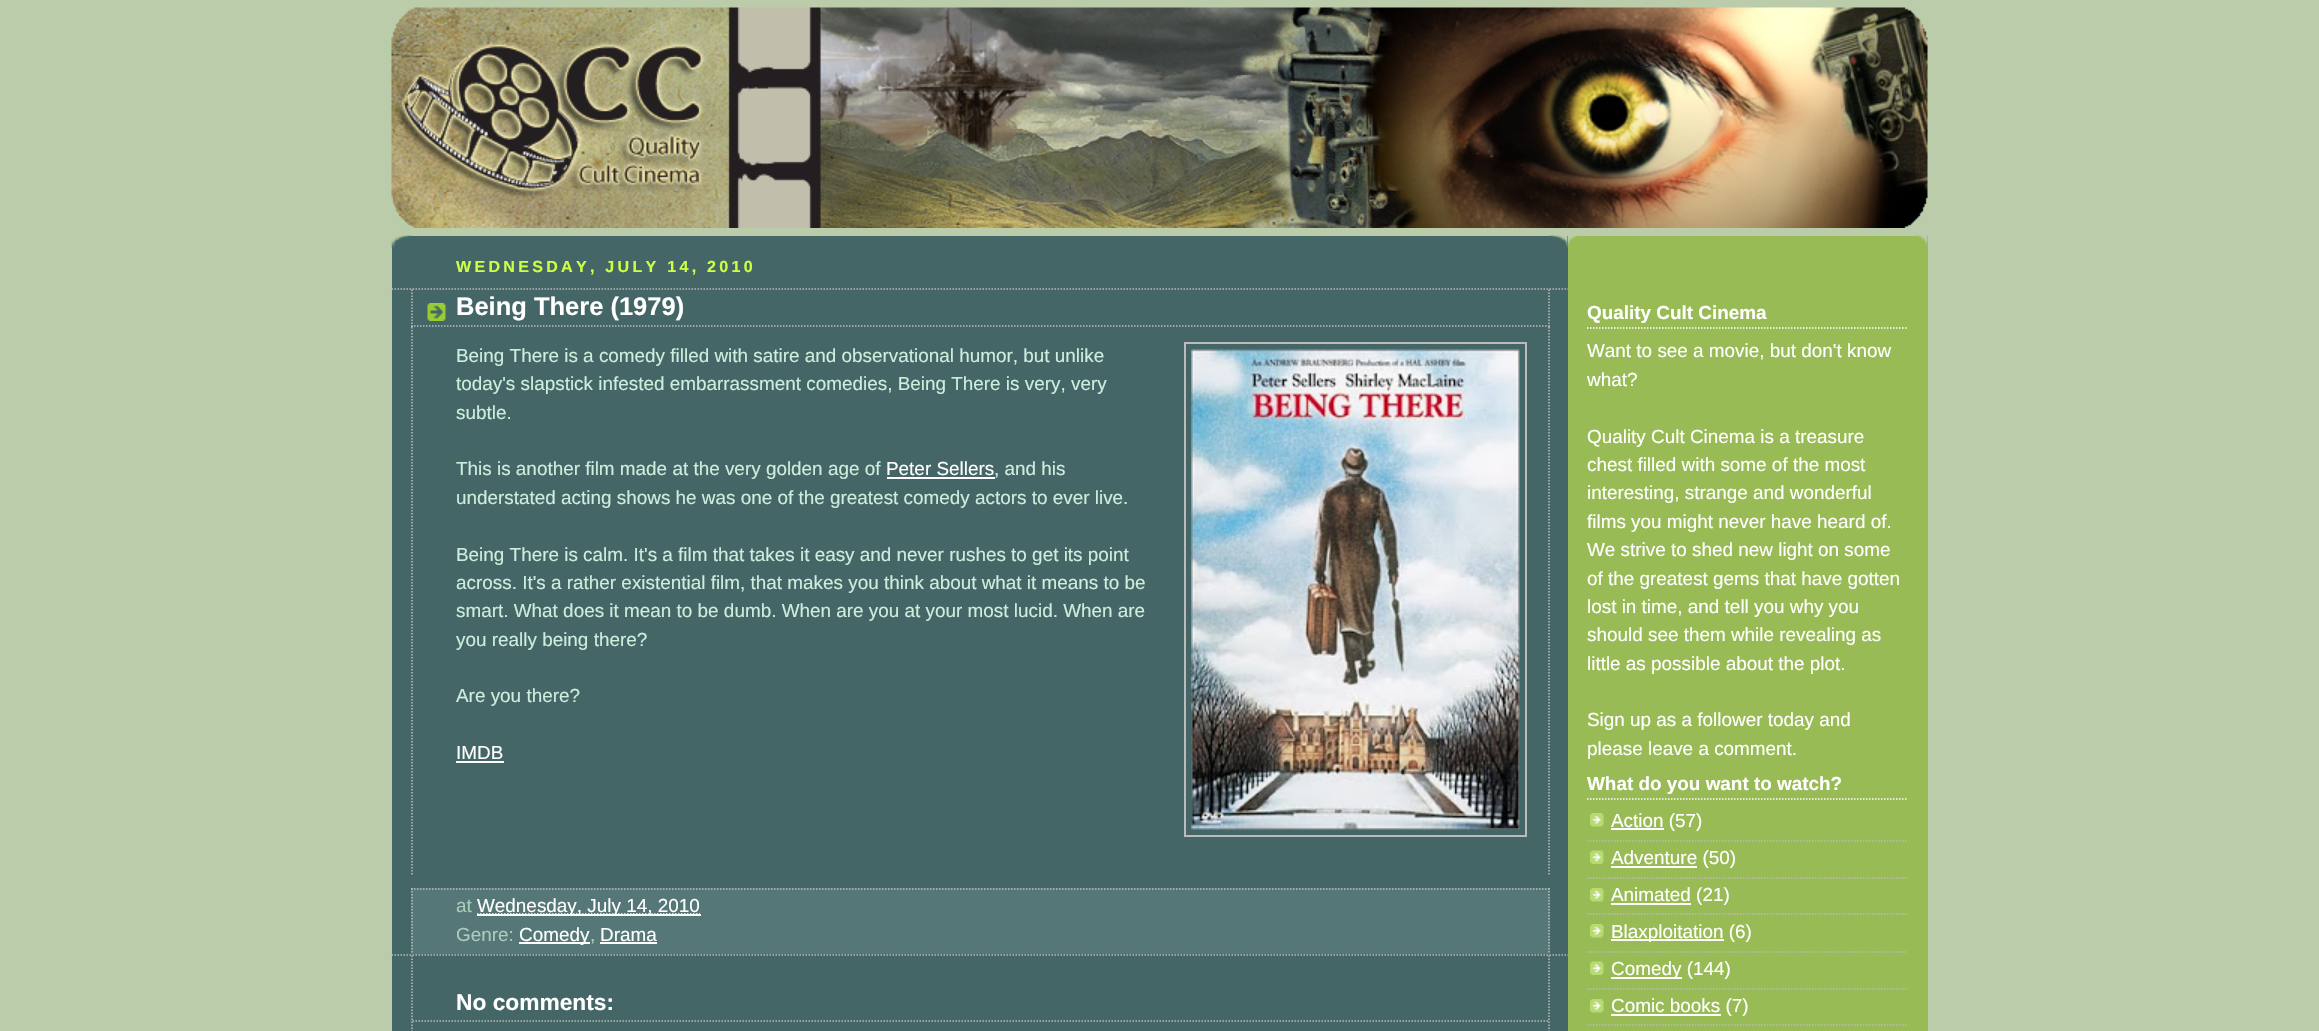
void draw(SkCanvas* c) {
SkPaint p;
p.setAntiAlias(true);
auto F=[&](const char* family, int weight, float size, bool italic = false){SkFontStyle style(weight, SkFontStyle::kNormal_Width,italic ? SkFontStyle::kItalic_Slant : SkFontStyle::kUpright_Slant);SkFont result(fontMgr->matchFamilyStyle(family, style), size);result.setSubpixel(true);return result;};
auto T=[&](const char* s, float x, float y, const SkFont& font){c->drawString(s, x, y, font, p);};
auto L=[&](const char* s, float x, float y, const SkFont& font, const SkPaint& ink, float letter, float word){std::vector<SkGlyphID> glyphs(font.countText(s, strlen(s), SkTextEncoding::kUTF8));std::vector<float> xs(glyphs.size());font.textToGlyphs(s, strlen(s), SkTextEncoding::kUTF8, glyphs);font.getXPos(glyphs, xs, x);float extra = 0;for (size_t i = 0; i < glyphs.size(); i++) {xs[i] += extra;extra += letter + word * (glyphs[i] == font.unicharToGlyph(' '));}c->drawTextBlob(SkTextBlob::MakeFromPosHGlyphs(glyphs, xs, y, font), 0, 0, ink);};
auto R=[&](float x, float y, float w, float h){c->drawRect(SkRect::MakeXYWH(x, y, w, h), p);};
auto I=[&](const char* path, float x, float y, float w, float h){auto image = SkImages::DeferredFromEncodedData(SkData::MakeFromFileName(path));c->drawImageRect(image, SkRect::MakeXYWH(x, y, w, h), SkSamplingOptions());};
auto P=[&](const char* data, bool evenOdd = false){SkPath result = *SkParsePath::FromSVGString(data);if (evenOdd) result.setFillType(SkPathFillType::kEvenOdd);return result;};
c->clear(0xffbbccaa);
I("1.png",391,7,1537,221);
p.setColor(0xff446666);
R(392,236,1176,795);
I("2.png",391,235,1177,13);
auto f1 = F("Liberation Sans",700,16.1);
p.setColor(0xffccff44);
L("WEDNESDAY, JULY 14, 2010",456,272,f1,p,3.25,0);
p.setStroke(true);
p.setStrokeWidth(1.5);
p.setColor(0xffbbbbbb);
p.setPathEffect(SkDashPathEffect::Make({{1.5f,1.5f}}, 0));
c->drawPath(P("M391.5 289h1177.5"),p);
p.setPathEffect(nullptr);
p.setPathEffect(SkDashPathEffect::Make({{1.5f,1.5f}}, 0));
c->drawPath(P("M391.5 955h1177.5"),p);
p.setPathEffect(nullptr);
I("3.png",427,303,19,18);
p.setPathEffect(SkDashPathEffect::Make({{1.5f,1.5f}}, 0));
c->drawPath(P("M1549 289.5v37.5"),p);
p.setPathEffect(nullptr);
p.setPathEffect(SkDashPathEffect::Make({{1.5f,1.5f}}, 0));
c->drawPath(P("M411 326h1138.5"),p);
p.setPathEffect(nullptr);
p.setPathEffect(SkDashPathEffect::Make({{1.5f,1.5f}}, 0));
c->drawPath(P("M412 289.5v37.5"),p);
p.setPathEffect(nullptr);
auto f2 = F("Liberation Sans",700,25.5);
p.setStroke(false);
p.setColor(0xffffffff);
T("Being There (1979)",456,315,f2);
p.setStroke(true);
p.setColor(0xffbbbbbb);
p.setPathEffect(SkDashPathEffect::Make({{1.5f,1.5f}}, 0));
c->drawPath(P("M1549 327v547.5"),p);
p.setPathEffect(nullptr);
p.setPathEffect(SkDashPathEffect::Make({{1.5f,1.5f}}, 0));
c->drawPath(P("M412 327v547.5"),p);
p.setPathEffect(nullptr);
auto f3 = F("Liberation Sans",400,18.9);
p.setStroke(false);
p.setColor(0xffcceedd);
T("Being There is a comedy filled with satire and observational humor, but unlike",456,362,f3);
p.setStroke(true);
p.setStrokeWidth(2);
p.setColor(0xffbbbbbb);
c->drawRect(SkRect::MakeXYWH(1185,343,341,493),p);
I("4.png",1191,349,329,481);
p.setStroke(false);
p.setColor(0xffcceedd);
T("today's slapstick infested embarrassment comedies, Being There is very, very",456,390,f3);
T("subtle.",456,419,f3);
T("This is another film made at the very golden age of",456,475,f3);
p.setColor(0xffffffff);
T("Peter Sellers",886,475,f3);
R(887,477,108,2);
p.setColor(0xffcceedd);
T(", and his",994,475,f3);
T("understated acting shows he was one of the greatest comedy actors to ever live.",456,504,f3);
T("Being There is calm. It's a film that takes it easy and never rushes to get its point",456,561,f3);
T("across. It's a rather existential film, that makes you think about what it means to be",456,589,f3);
T("smart. What does it mean to be dumb. When are you at your most lucid. When are",456,617,f3);
T("you really being there?",456,646,f3);
T("Are you there?",456,702,f3);
p.setColor(0xffffffff);
T("IMDB",456,759,f3);
R(456,761,48,2);
p.setColor(0xff557777);
R(411,888,1139,66);
p.setStroke(true);
p.setStrokeWidth(1.5);
p.setColor(0xffbbbbbb);
p.setPathEffect(SkDashPathEffect::Make({{1.5f,1.5f}}, 0));
c->drawPath(P("M411 889h1138.5"),p);
p.setPathEffect(nullptr);
p.setPathEffect(SkDashPathEffect::Make({{1.5f,1.5f}}, 0));
c->drawPath(P("M1549 888v66"),p);
p.setPathEffect(nullptr);
p.setPathEffect(SkDashPathEffect::Make({{1.5f,1.5f}}, 0));
c->drawPath(P("M412 888v66"),p);
p.setPathEffect(nullptr);
p.setStroke(false);
p.setColor(0xffaaccbb);
T("at",456,912,f3);
p.setStroke(true);
p.setColor(0xffffffff);
p.setPathEffect(SkDashPathEffect::Make({{1.5f,1.5f}}, 0));
c->drawPath(P("M477 914h223"),p);
p.setPathEffect(nullptr);
p.setStroke(false);
R(477,914,224,2);
T("Wednesday, July 14, 2010",477,912,f3);
p.setColor(0xffaaccbb);
T("Genre:",456,941,f3);
p.setColor(0xffffffff);
R(519,942,71,2);
T("Comedy",519,941,f3);
p.setColor(0xffaaccbb);
T(",",590,941,f3);
p.setColor(0xffffffff);
R(600,942,57,2);
T("Drama",600,941,f3);
p.setStroke(true);
p.setColor(0xffbbbbbb);
p.setPathEffect(SkDashPathEffect::Make({{1.5f,1.5f}}, 0));
c->drawPath(P("M1549 955.5v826.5"),p);
p.setPathEffect(nullptr);
p.setPathEffect(SkDashPathEffect::Make({{1.5f,1.5f}}, 0));
c->drawPath(P("M412 955.5v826.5"),p);
p.setPathEffect(nullptr);
p.setPathEffect(SkDashPathEffect::Make({{1.5f,1.5f}}, 0));
c->drawPath(P("M412.5 1021h1135.5"),p);
p.setPathEffect(nullptr);
auto f4 = F("Liberation Sans",700,22.75);
p.setStroke(false);
p.setColor(0xffffffff);
T("No comments:",456,1010,f4);
p.setColor(0xff99bb55);
R(1568,236,360,795);
I("5.png",1567,235,361,13);
p.setStroke(true);
p.setColor(0xffffffff);
p.setPathEffect(SkDashPathEffect::Make({{1.5f,1.5f}}, 0));
c->drawPath(P("M1587 328h321"),p);
p.setPathEffect(nullptr);
auto f5 = F("Liberation Sans",700,18.9);
p.setStroke(false);
T("Quality Cult Cinema",1587,319,f5);
T("Want to see a movie, but don't know",1587,357,f3);
T("what?",1587,386,f3);
T("Quality Cult Cinema is a treasure",1587,443,f3);
T("chest filled with some of the most",1587,471,f3);
T("interesting, strange and wonderful",1587,499,f3);
T("films you might never have heard of.",1587,528,f3);
T("We strive to shed new light on some",1587,556,f3);
T("of the greatest gems that have gotten",1587,585,f3);
T("lost in time, and tell you why you",1587,613,f3);
T("should see them while revealing as",1587,641,f3);
T("little as possible about the plot.",1587,670,f3);
T("Sign up as a follower today and",1587,726,f3);
T("please leave a comment.",1587,755,f3);
p.setStroke(true);
p.setPathEffect(SkDashPathEffect::Make({{1.5f,1.5f}}, 0));
c->drawPath(P("M1587 799h321"),p);
p.setPathEffect(nullptr);
p.setStroke(false);
T("What do you want to watch?",1587,790,f5);
I("6.png",1590,813,14,14);
p.setStroke(true);
p.setColor(0xffbbbbbb);
p.setPathEffect(SkDashPathEffect::Make({{1.5f,1.5f}}, 0));
c->drawPath(P("M1587 841h321"),p);
p.setPathEffect(nullptr);
p.setStroke(false);
p.setColor(0xffffffff);
R(1611,828,53,2);
T("Action (57)",1611,827,f3);
I("7.png",1590,850,14,14);
p.setStroke(true);
p.setColor(0xffbbbbbb);
p.setPathEffect(SkDashPathEffect::Make({{1.5f,1.5f}}, 0));
c->drawPath(P("M1587 878h321"),p);
p.setPathEffect(nullptr);
p.setStroke(false);
p.setColor(0xffffffff);
R(1611,866,86,2);
T("Adventure (50)",1611,864,f3);
I("6.png",1590,888,14,14);
p.setStroke(true);
p.setColor(0xffbbbbbb);
p.setPathEffect(SkDashPathEffect::Make({{1.5f,1.5f}}, 0));
c->drawPath(P("M1587 914h321"),p);
p.setPathEffect(nullptr);
p.setStroke(false);
p.setColor(0xffffffff);
R(1611,903,80,2);
T("Animated (21)",1611,901,f3);
I("6.png",1590,924,14,14);
p.setStroke(true);
p.setColor(0xffbbbbbb);
p.setPathEffect(SkDashPathEffect::Make({{1.5f,1.5f}}, 0));
c->drawPath(P("M1587 952h321"),p);
p.setPathEffect(nullptr);
p.setStroke(false);
p.setColor(0xffffffff);
R(1611,939,113,2);
T("Blaxploitation (6)",1611,938,f3);
I("7.png",1590,961,14,14);
p.setStroke(true);
p.setColor(0xffbbbbbb);
p.setPathEffect(SkDashPathEffect::Make({{1.5f,1.5f}}, 0));
c->drawPath(P("M1587 989h321"),p);
p.setPathEffect(nullptr);
p.setStroke(false);
p.setColor(0xffffffff);
R(1611,977,71,2);
T("Comedy (144)",1611,975,f3);
I("6.png",1590,999,14,14);
p.setStroke(true);
p.setColor(0xffbbbbbb);
p.setPathEffect(SkDashPathEffect::Make({{1.5f,1.5f}}, 0));
c->drawPath(P("M1587 1025h321"),p);
p.setPathEffect(nullptr);
p.setStroke(false);
p.setColor(0xffffffff);
R(1611,1014,110,2);
T("Comic books (7)",1611,1012,f3);
}
